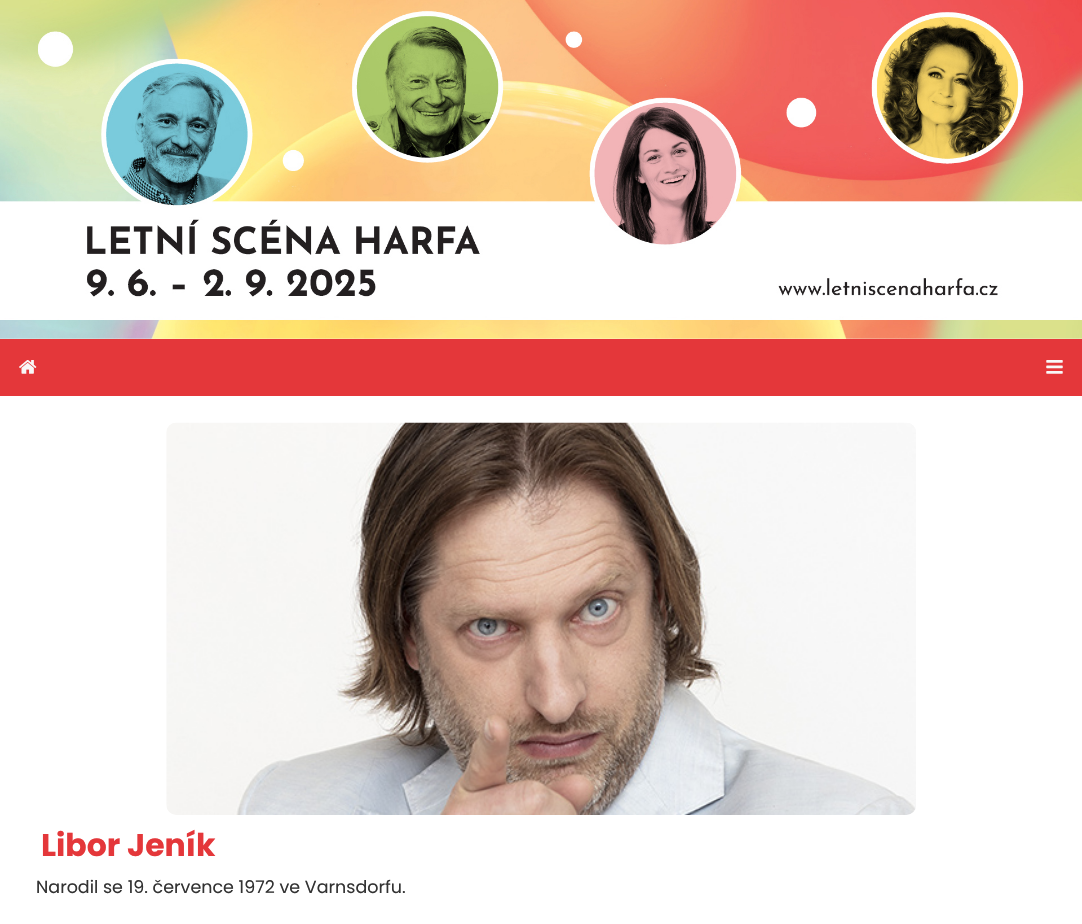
void draw(SkCanvas* c) {
SkPaint p;
p.setAntiAlias(true);
auto F=[&](const char* family, int weight, float size, bool italic = false){SkFontStyle style(weight, SkFontStyle::kNormal_Width,italic ? SkFontStyle::kItalic_Slant : SkFontStyle::kUpright_Slant);SkFont result(fontMgr->matchFamilyStyle(family, style), size);result.setSubpixel(true);return result;};
auto T=[&](const char* s, float x, float y, const SkFont& font){c->drawString(s, x, y, font, p);};
auto R=[&](float x, float y, float w, float h){c->drawRect(SkRect::MakeXYWH(x, y, w, h), p);};
auto I=[&](const char* path, float x, float y, float w, float h){auto image = SkImages::DeferredFromEncodedData(SkData::MakeFromFileName(path));c->drawImageRect(image, SkRect::MakeXYWH(x, y, w, h), SkSamplingOptions());};
c->clear(0xffffffff);
I("1.png",0,0,1082,339);
p.setColor(0xffe4373a);
R(0,339,1082,57);
I("2.png",19,360,18,14);
I("3.png",1046,360,17,14);
I("4.png",166,422,750,393);
auto f1 = F("Poppins",700,31.5);
T("Libor Jeník",41,856,f1);
auto f2 = F("Poppins",400,17.5);
p.setColor(0xff333333);
T("Narodil se 19. července 1972 ve Varnsdorfu.",36,893,f2);
}
